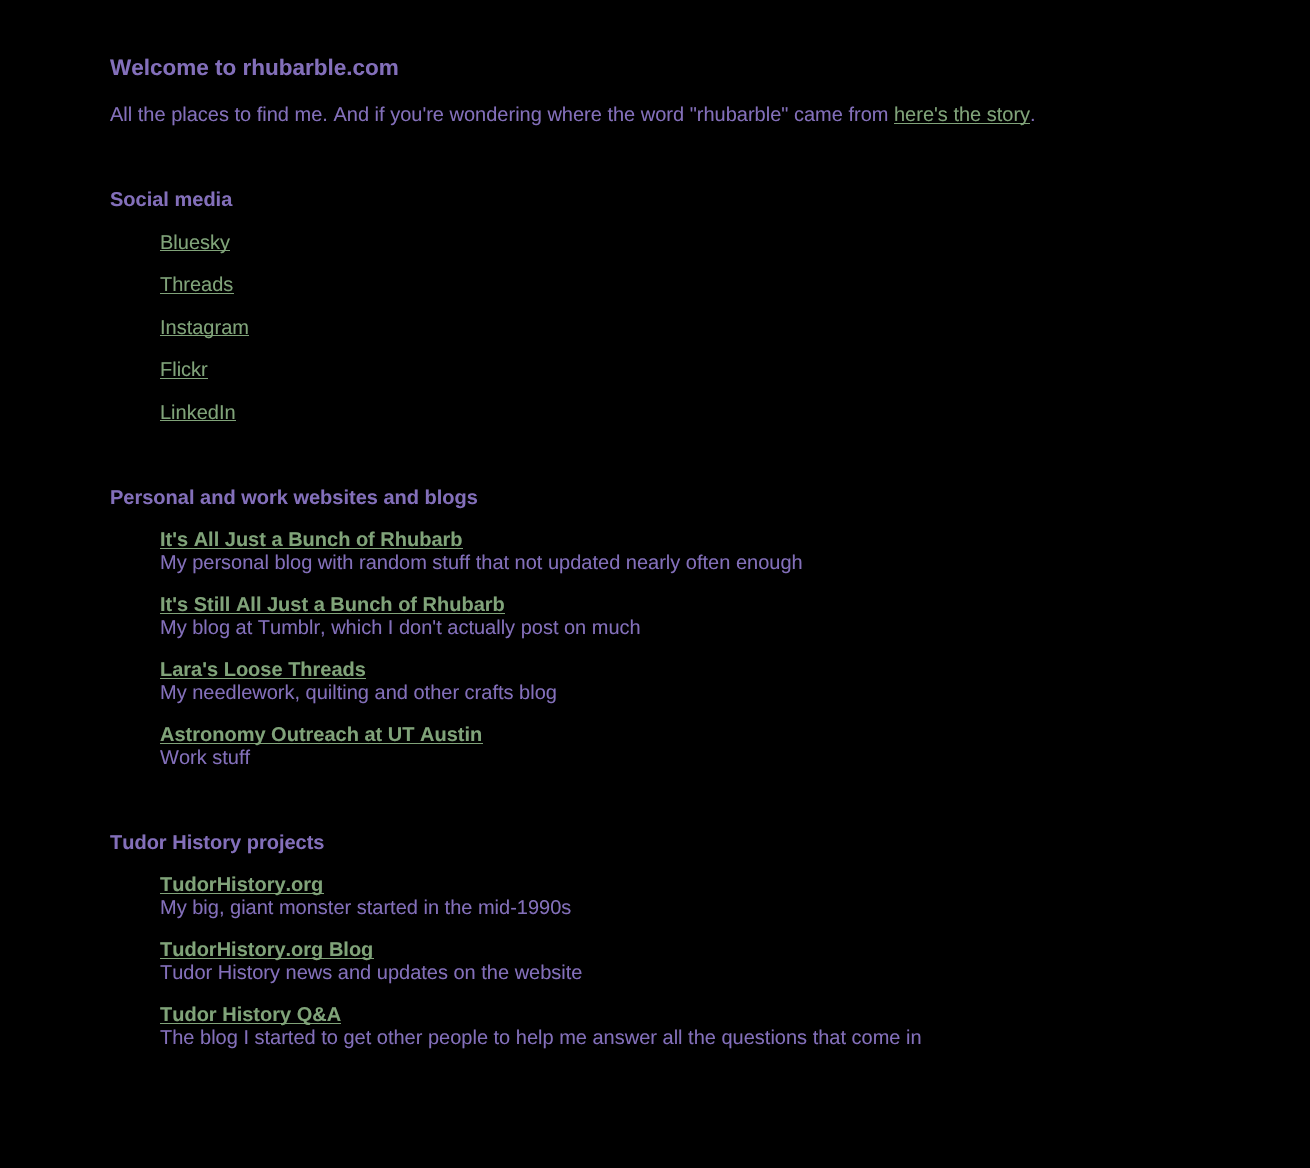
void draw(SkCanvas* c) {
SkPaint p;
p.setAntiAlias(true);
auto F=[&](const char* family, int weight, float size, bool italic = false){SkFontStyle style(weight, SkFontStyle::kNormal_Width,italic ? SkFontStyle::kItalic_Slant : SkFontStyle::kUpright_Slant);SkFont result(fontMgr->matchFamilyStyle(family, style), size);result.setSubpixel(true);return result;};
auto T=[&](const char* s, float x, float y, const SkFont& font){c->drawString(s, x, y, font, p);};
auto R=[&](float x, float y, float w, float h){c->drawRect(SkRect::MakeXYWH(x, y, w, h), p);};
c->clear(0xff000000);
auto f1 = F("Liberation Sans",700,22.5);
p.setColor(0xff836fba);
T("Welcome to rhubarble.com",110,75,f1);
auto f2 = F("Liberation Sans",400,20);
T("All the places to find me. And if you're wondering where the word \"rhubarble\" came from",110,121,f2);
p.setColor(0xff80a379);
R(894,123,136,1);
T("here's the story",894,121,f2);
p.setColor(0xff836fba);
T(".",1030,121,f2);
auto f3 = F("Liberation Sans",700,20);
T("Social media",110,206,f3);
p.setColor(0xff80a379);
R(160,250,70,1);
T("Bluesky",160,249,f2);
T("Threads",160,291,f2);
R(160,293,74,1);
R(160,335,89,1);
T("Instagram",160,334,f2);
T("Flickr",160,376,f2);
R(160,378,48,1);
T("LinkedIn",160,419,f2);
R(160,420,76,1);
p.setColor(0xff836fba);
T("Personal and work websites and blogs",110,504,f3);
p.setColor(0xff80a379);
T("It's All Just a Bunch of Rhubarb",160,546,f3);
R(160,548,303,1);
p.setColor(0xff836fba);
T("My personal blog with random stuff that not updated nearly often enough",160,569,f2);
p.setColor(0xff80a379);
T("It's Still All Just a Bunch of Rhubarb",160,611,f3);
R(160,613,345,1);
p.setColor(0xff836fba);
T("My blog at Tumblr, which I don't actually post on much",160,634,f2);
p.setColor(0xff80a379);
T("Lara's Loose Threads",160,676,f3);
R(160,678,206,1);
p.setColor(0xff836fba);
T("My needlework, quilting and other crafts blog",160,699,f2);
p.setColor(0xff80a379);
R(160,743,323,1);
T("Astronomy Outreach at UT Austin",160,741,f3);
p.setColor(0xff836fba);
T("Work stuff",160,764,f2);
T("Tudor History projects",110,849,f3);
p.setColor(0xff80a379);
R(160,893,164,1);
T("TudorHistory.org",160,891,f3);
p.setColor(0xff836fba);
T("My big, giant monster started in the mid-1990s",160,914,f2);
p.setColor(0xff80a379);
R(160,958,214,1);
T("TudorHistory.org Blog",160,956,f3);
p.setColor(0xff836fba);
T("Tudor History news and updates on the website",160,979,f2);
p.setColor(0xff80a379);
R(160,1023,181,1);
T("Tudor History Q&A",160,1021,f3);
p.setColor(0xff836fba);
T("The blog I started to get other people to help me answer all the questions that come in",160,1044,f2);
}
